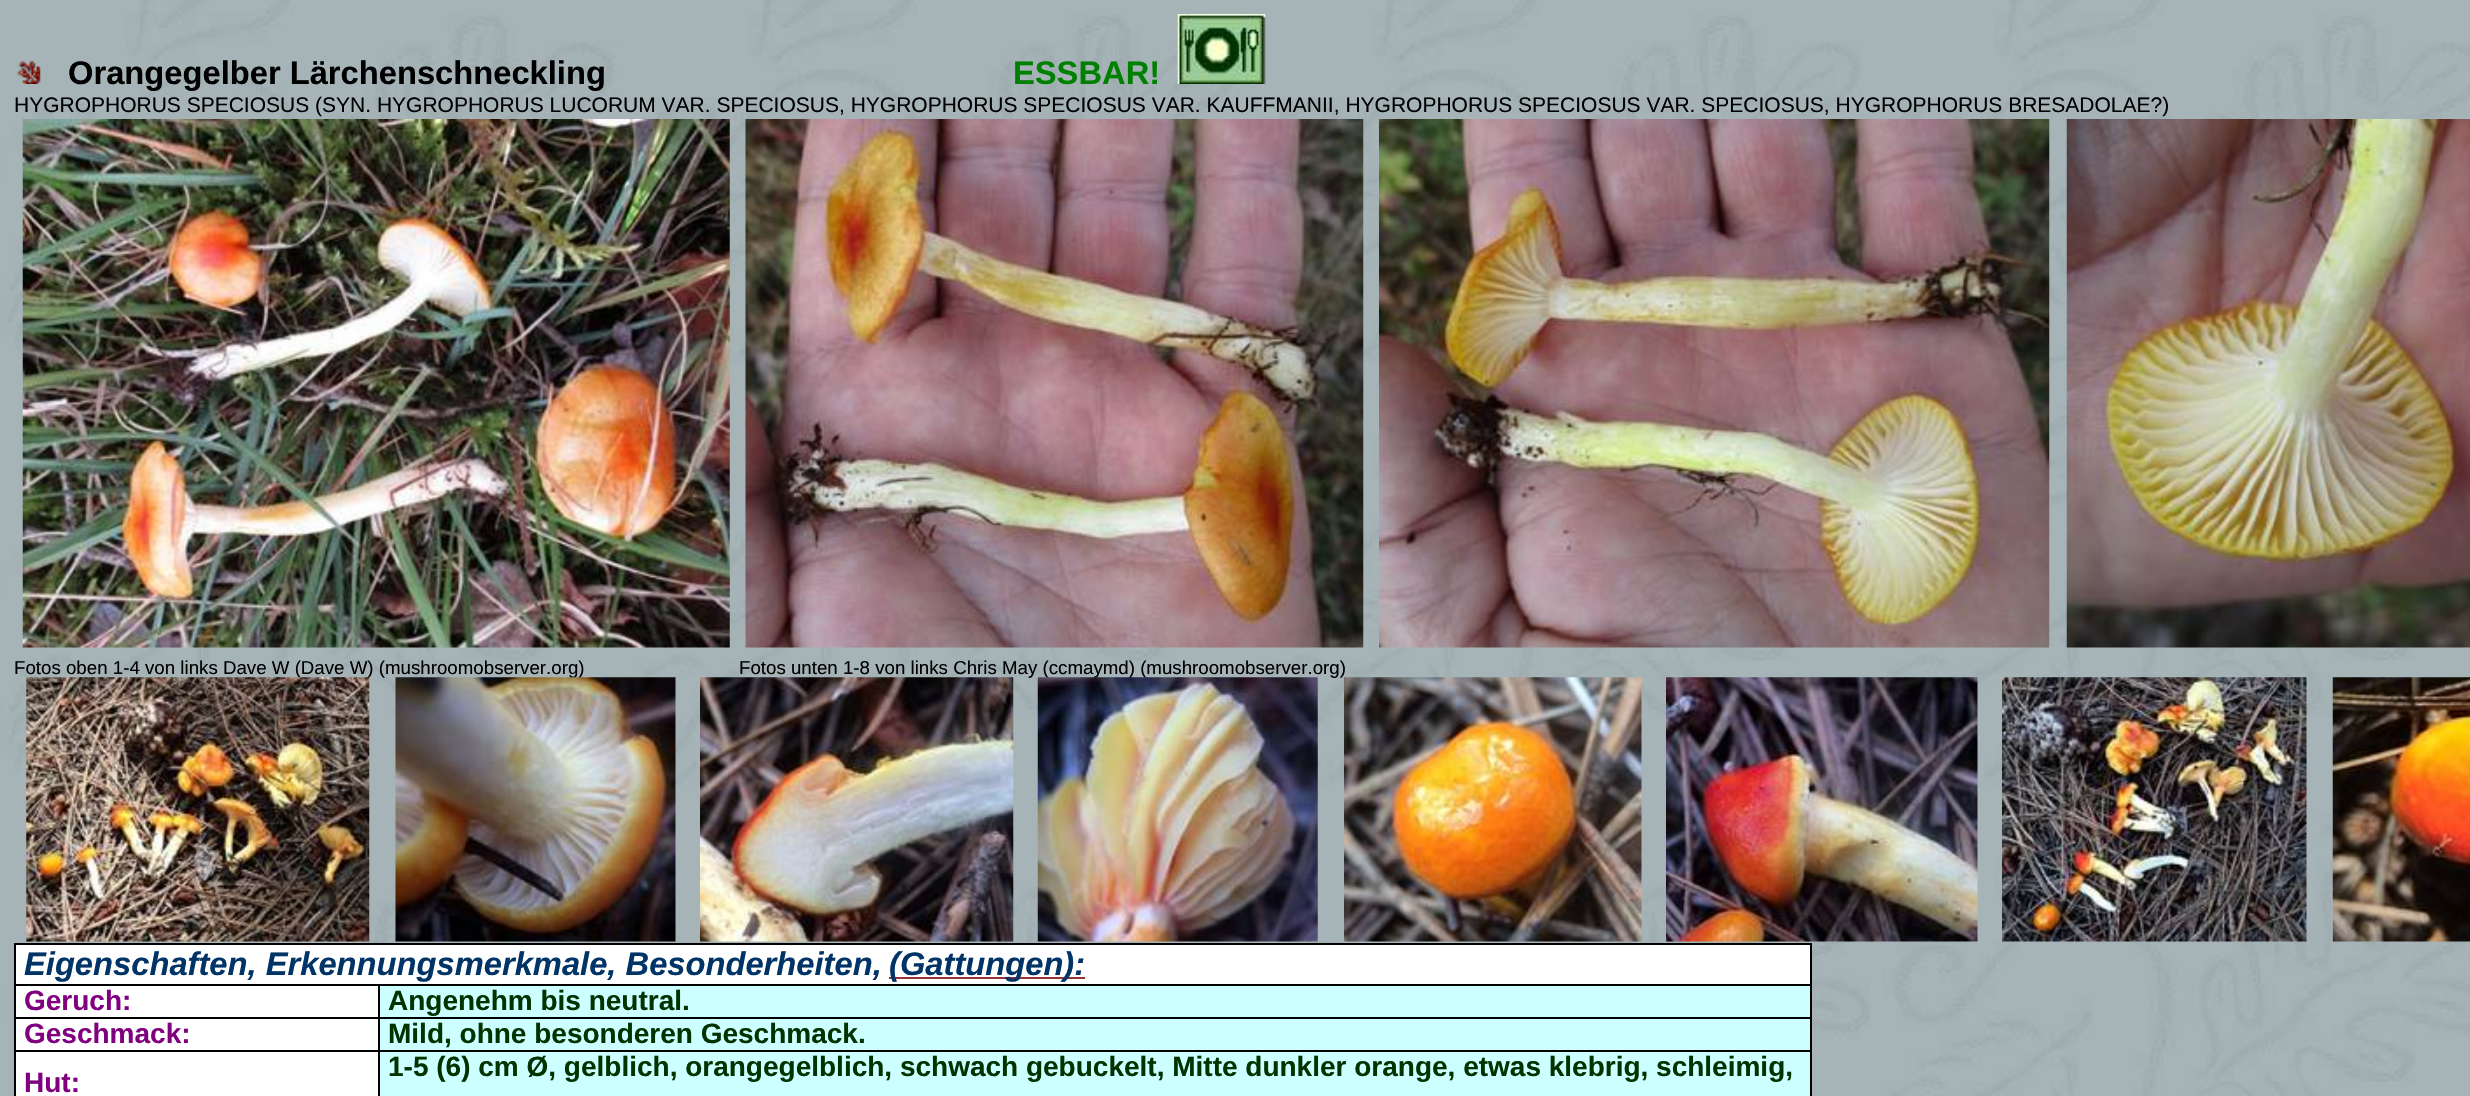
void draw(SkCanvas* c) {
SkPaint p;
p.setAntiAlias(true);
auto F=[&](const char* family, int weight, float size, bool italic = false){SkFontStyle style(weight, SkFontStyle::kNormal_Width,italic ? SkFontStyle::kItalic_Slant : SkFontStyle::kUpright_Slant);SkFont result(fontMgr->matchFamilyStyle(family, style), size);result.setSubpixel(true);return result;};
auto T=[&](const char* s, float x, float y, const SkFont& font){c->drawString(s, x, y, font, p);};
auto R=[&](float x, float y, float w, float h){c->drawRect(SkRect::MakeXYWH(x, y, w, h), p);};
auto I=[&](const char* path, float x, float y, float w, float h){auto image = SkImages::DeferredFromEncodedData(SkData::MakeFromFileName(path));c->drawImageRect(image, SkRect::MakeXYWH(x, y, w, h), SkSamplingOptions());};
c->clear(0xffffffff);
I("1.png",0,0,2470,1096);
I("2.png",17,60,24,24);
auto f1 = F("Liberation Sans",700,32.7);
p.setColor(0xff000000);
T("Orangegelber Lärchenschneckling",68,84,f1);
p.setColor(0xff008000);
T("ESSBAR!",1013,84,f1);
I("3.png",1177,14,89,70);
auto f2 = F("Liberation Sans",400,21);
p.setColor(0xff000000);
T("HYGROPHORUS SPECIOSUS (SYN. HYGROPHORUS LUCORUM VAR. SPECIOSUS, HYGROPHORUS SPECIOSUS VAR. KAUFFMANII, HYGROPHORUS SPECIOSUS VAR. SPECIOSUS, HYGROPHORUS BRESADOLAE?)",14,112,f2);
I("4.png",22,119,708,529);
I("5.png",745,119,619,529);
I("6.png",1379,119,671,529);
I("7.png",2066,119,404,529);
auto f3 = F("Liberation Sans",400,18.7);
T("Fotos oben 1-4 von links Dave W (Dave W) (mushroomobserver.org)",14,674,f3);
T("Fotos unten 1-8 von links Chris May (ccmaymd) (mushroomobserver.org)",739,674,f3);
I("8.png",26,677,344,265);
I("9.png",395,677,281,265);
I("10.png",700,677,314,265);
I("11.png",1037,677,281,265);
I("12.png",1344,677,298,265);
I("13.png",1666,677,312,265);
I("14.png",2002,677,305,265);
I("15.png",2332,677,138,265);
p.setColor(0xffffffff);
R(16,945,1794,39);
p.setColor(0xff000000);
R(14,943,1797,2);
R(1810,984,2,112);
R(1810,943,2,42);
R(378,1050,2,46);
R(378,1050,1433,2);
R(378,1017,2,35);
R(378,1017,1433,2);
R(378,984,2,35);
R(14,1050,2,46);
R(14,1050,366,2);
R(14,1017,2,35);
R(14,1017,366,2);
R(14,984,2,35);
R(14,984,1797,2);
R(14,943,2,42);
auto f4 = F("Liberation Sans",700,32.7,true);
p.setColor(0xff003366);
T("Eigenschaften, Erkennungsmerkmale, Besonderheiten,",24,975,f4);
p.setColor(0xff993333);
R(889,977,196,2);
p.setColor(0xff003366);
T("(Gattungen):",889,975,f4);
p.setColor(0xffffffff);
R(16,986,362,31);
auto f5 = F("Liberation Sans",700,28);
p.setColor(0xff800080);
T("Geruch:",24,1010,f5);
p.setColor(0xffccffff);
R(380,986,1430,31);
p.setColor(0xff003300);
T("Angenehm bis neutral.",388,1010,f5);
p.setColor(0xffffffff);
R(16,1019,362,31);
p.setColor(0xff800080);
T("Geschmack:",24,1043,f5);
p.setColor(0xffccffff);
R(380,1019,1430,31);
p.setColor(0xff003300);
T("Mild, ohne besonderen Geschmack.",388,1043,f5);
p.setColor(0xffffffff);
R(16,1052,362,44);
p.setColor(0xff800080);
T("Hut:",24,1092,f5);
p.setColor(0xffccffff);
R(380,1052,1430,44);
p.setColor(0xff003300);
T("1-5 (6) cm Ø, gelblich, orangegelblich, schwach gebuckelt, Mitte dunkler orange, etwas klebrig, schleimig,",388,1076,f5);
}
